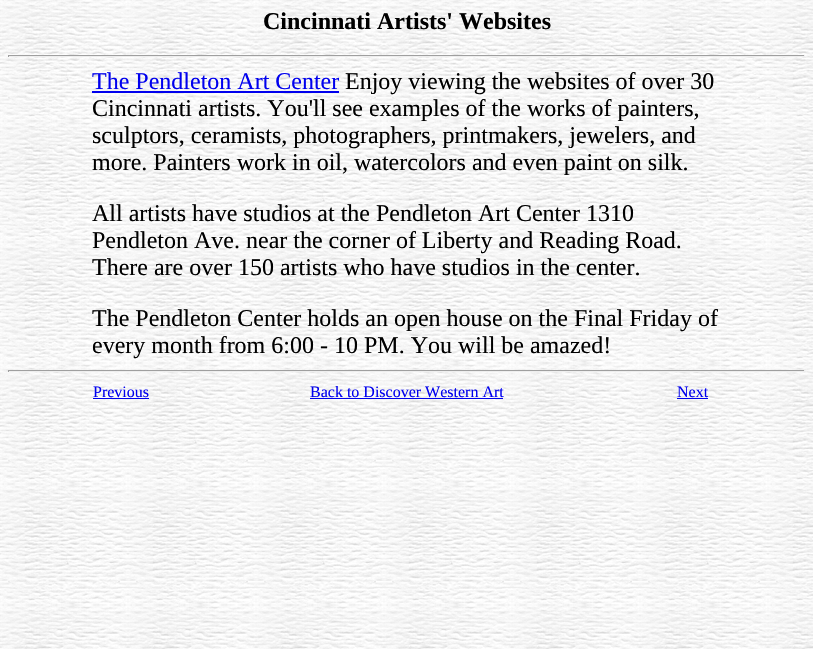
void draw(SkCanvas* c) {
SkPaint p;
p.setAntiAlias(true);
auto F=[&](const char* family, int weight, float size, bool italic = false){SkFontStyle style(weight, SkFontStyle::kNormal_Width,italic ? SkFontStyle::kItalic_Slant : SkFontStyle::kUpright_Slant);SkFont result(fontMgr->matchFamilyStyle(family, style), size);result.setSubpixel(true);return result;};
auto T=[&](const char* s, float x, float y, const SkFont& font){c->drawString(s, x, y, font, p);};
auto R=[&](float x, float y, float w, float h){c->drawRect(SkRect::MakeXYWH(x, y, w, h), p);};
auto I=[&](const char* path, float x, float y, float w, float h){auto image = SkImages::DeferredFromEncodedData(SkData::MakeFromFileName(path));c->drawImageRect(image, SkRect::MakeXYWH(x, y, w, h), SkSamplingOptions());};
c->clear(0xffffffff);
I("1.png",0,0,813,649);
auto f1 = F("Liberation Serif",700,24);
p.setColor(0xff000000);
T("Cincinnati Artists' Websites",263,29,f1);
p.setColor(0xff9f9f9f);
R(8,55,797,1);
p.setColor(0xffeeeeee);
R(804,55,1,2);
R(8,56,797,1);
p.setColor(0xff9f9f9f);
R(8,55,1,2);
auto f2 = F("Liberation Serif",400,24);
p.setColor(0xff0000ee);
T("The Pendleton Art Center",92,89,f2);
R(92,91,247,2);
p.setColor(0xff000000);
T("Enjoy viewing the websites of over 30",345,89,f2);
T("Cincinnati artists. You'll see examples of the works of painters,",92,116,f2);
T("sculptors, ceramists, photographers, printmakers, jewelers, and",92,143,f2);
T("more. Painters work in oil, watercolors and even paint on silk.",92,170,f2);
T("All artists have studios at the Pendleton Art Center 1310",92,221,f2);
T("Pendleton Ave. near the corner of Liberty and Reading Road.",92,248,f2);
T("There are over 150 artists who have studios in the center.",92,275,f2);
T("The Pendleton Center holds an open house on the Final Friday of",92,326,f2);
T("every month from 6:00 - 10 PM. You will be amazed!",92,353,f2);
p.setColor(0xff9f9f9f);
R(8,370,797,1);
p.setColor(0xffeeeeee);
R(804,370,1,2);
R(8,371,797,1);
p.setColor(0xff9f9f9f);
R(8,370,1,2);
auto f3 = F("Liberation Serif",400,16);
p.setColor(0xff0000ee);
T("Previous",93,397,f3);
R(93,398,56,1);
T("Back to Discover Western Art",310,397,f3);
R(310,398,193,1);
T("Next",677,397,f3);
R(677,398,31,1);
}
